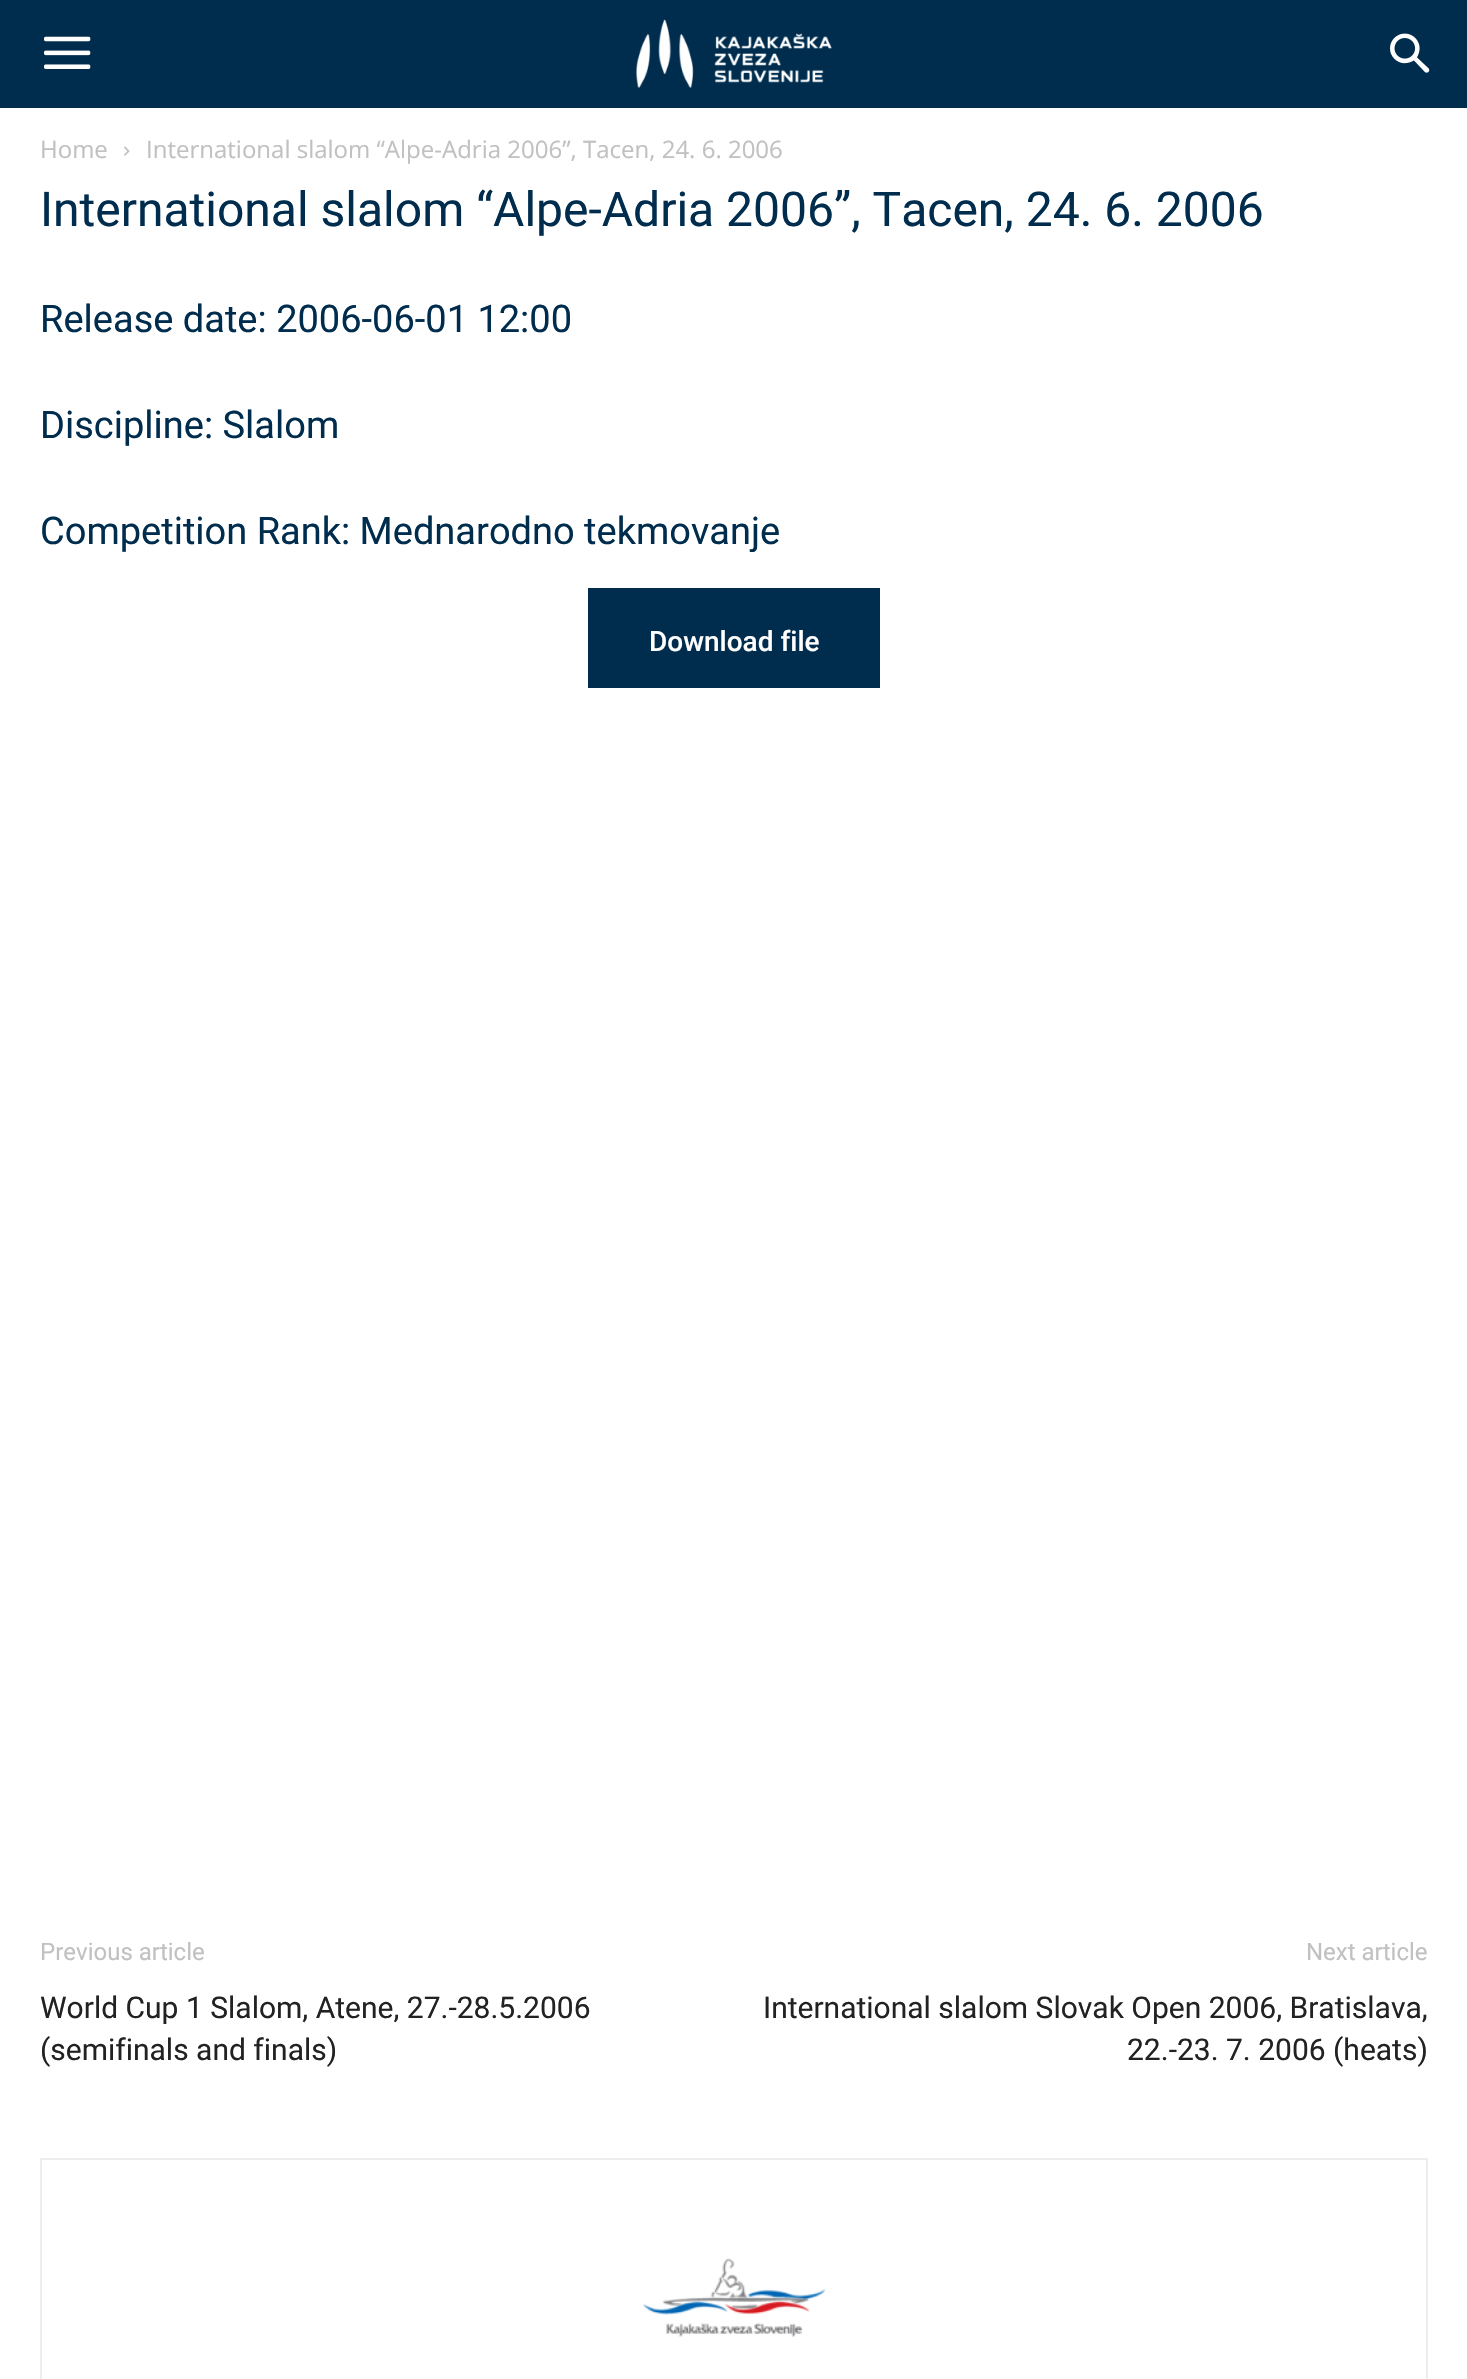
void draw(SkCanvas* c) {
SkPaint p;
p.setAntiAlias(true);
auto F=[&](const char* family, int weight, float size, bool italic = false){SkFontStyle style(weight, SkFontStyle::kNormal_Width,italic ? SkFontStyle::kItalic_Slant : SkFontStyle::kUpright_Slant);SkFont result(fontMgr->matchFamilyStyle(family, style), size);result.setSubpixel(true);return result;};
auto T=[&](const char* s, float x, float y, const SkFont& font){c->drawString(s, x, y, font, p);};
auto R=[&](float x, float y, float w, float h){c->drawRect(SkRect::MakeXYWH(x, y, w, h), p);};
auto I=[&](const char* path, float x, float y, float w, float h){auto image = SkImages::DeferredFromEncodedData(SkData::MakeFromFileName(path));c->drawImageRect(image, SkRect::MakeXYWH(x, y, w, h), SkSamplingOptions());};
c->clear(0xffffffff);
p.setColor(0xff002d4e);
R(0,0,1467,108);
I("1.png",44,36,47,33);
I("2.png",636,19,196,69);
I("3.png",1390,33,40,40);
auto f1 = F("Open Sans",400,24);
p.setColor(0xffc1c1c1);
T("Home",40,158,f1);
I("4.png",124,146,6,10);
T("International slalom “Alpe-Adria 2006”, Tacen, 24. 6. 2006",146,158,f1);
auto f2 = F("Roboto",400,48);
p.setColor(0xff002d4e);
T("International slalom “Alpe-Adria 2006”, Tacen, 24. 6. 2006",40,226,f2);
auto f3 = F("Roboto",400,38);
T("Release date: 2006-06-01 12:00",40,332,f3);
T("Discipline: Slalom",40,438,f3);
T("Competition Rank: Mednarodno tekmovanje",40,544,f3);
R(588,588,292,100);
auto f4 = F("Roboto",500,28);
p.setColor(0xffffffff);
T("Download file",649,651,f4);
auto f5 = F("Roboto",400,24);
p.setColor(0xffc1c1c1);
T("Previous article",40,1960,f5);
auto f6 = F("Roboto",400,30);
p.setColor(0xff222222);
T("World Cup 1 Slalom, Atene, 27.-28.5.2006",40,2018,f6);
T("(semifinals and finals)",40,2060,f6);
p.setColor(0xffc1c1c1);
T("Next article",1306,1960,f5);
p.setColor(0xff222222);
T("International slalom Slovak Open 2006, Bratislava,",763,2018,f6);
T("22.-23. 7. 2006 (heats)",1127,2060,f6);
p.setStroke(true);
p.setStrokeWidth(2);
p.setColor(0xffededed);
c->drawRect(SkRect::MakeXYWH(41,2159,1386,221),p);
I("5.png",643,2258,183,79);
}
